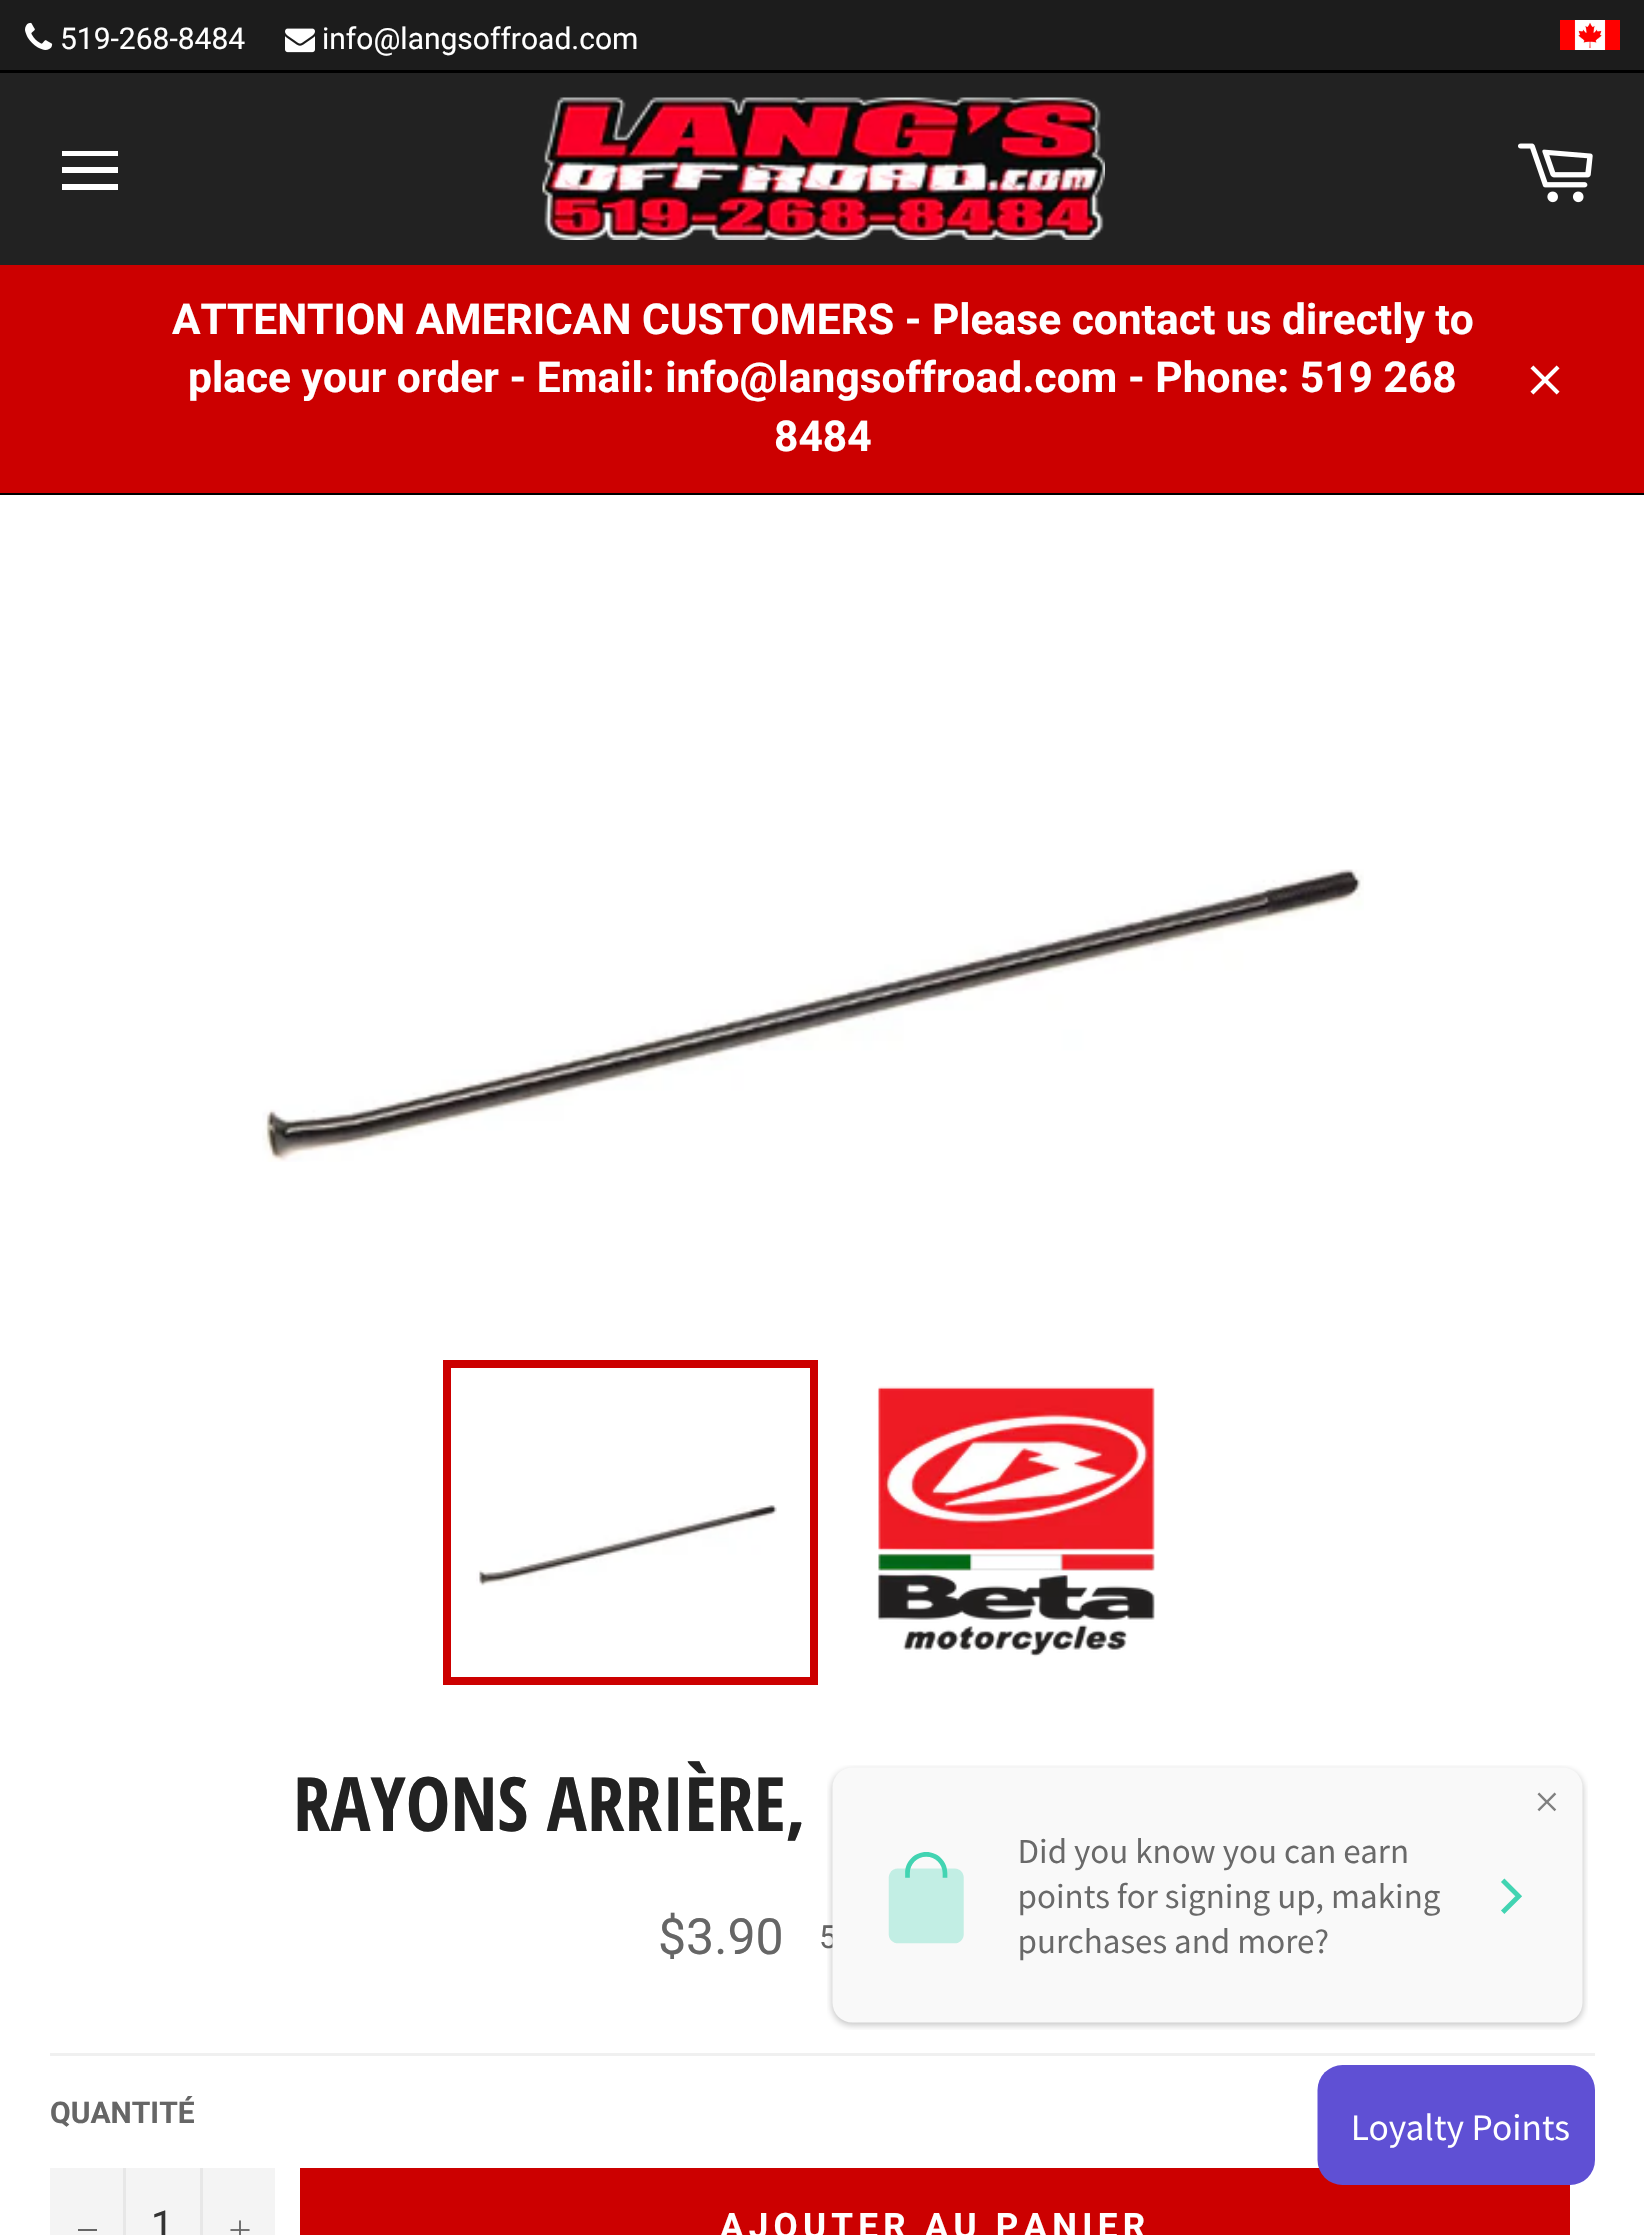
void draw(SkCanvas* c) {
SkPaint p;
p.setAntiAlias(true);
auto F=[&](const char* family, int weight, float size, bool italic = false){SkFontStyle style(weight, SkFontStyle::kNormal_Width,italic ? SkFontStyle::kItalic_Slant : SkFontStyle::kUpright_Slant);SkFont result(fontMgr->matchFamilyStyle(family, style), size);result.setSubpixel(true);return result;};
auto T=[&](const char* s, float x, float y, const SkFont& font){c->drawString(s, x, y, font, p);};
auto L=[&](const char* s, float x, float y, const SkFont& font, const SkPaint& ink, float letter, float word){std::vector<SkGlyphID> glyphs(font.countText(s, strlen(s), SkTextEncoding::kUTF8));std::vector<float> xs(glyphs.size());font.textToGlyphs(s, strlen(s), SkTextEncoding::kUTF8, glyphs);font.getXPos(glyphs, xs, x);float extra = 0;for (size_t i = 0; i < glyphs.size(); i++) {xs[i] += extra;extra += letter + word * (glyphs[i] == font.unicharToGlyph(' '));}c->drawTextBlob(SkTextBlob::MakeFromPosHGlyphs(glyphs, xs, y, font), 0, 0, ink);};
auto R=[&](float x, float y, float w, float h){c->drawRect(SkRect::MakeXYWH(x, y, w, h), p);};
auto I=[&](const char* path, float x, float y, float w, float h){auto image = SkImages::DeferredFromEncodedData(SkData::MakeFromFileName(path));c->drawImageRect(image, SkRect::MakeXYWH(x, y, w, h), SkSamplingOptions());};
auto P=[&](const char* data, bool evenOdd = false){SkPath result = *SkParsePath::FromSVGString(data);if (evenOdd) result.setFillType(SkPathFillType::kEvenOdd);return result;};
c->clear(0xff1c1c1c);
I("1.png",25,22,28,28);
auto f1 = F("Roboto",400,30);
p.setColor(0xffffffff);
T("519-268-8484",60,49,f1);
I("2.png",285,28,30,25);
T("info@langsoffroad.com",322,49,f1);
I("3.png",1560,20,60,30);
p.setColor(0xff222222);
R(0,73,1644,192);
p.setColor(0xff000000);
R(0,70,1644,3);
p.setColor(0xffffffff);
c->drawPath(P("M62 167h56v6h-56zm0-16h56v5h-56zm0 33h56v6h-56z"),p);
I("4.png",542,97,563,143);
I("5.png",1518,143,75,60);
p.setColor(0xffcc0000);
R(0,265,1644,228);
p.setColor(0xff000000);
R(0,493,1644,2);
auto f2 = F("Roboto",700,42.5);
p.setColor(0xffffffff);
T("ATTENTION AMERICAN CUSTOMERS - Please contact us directly to",172,334,f2);
T("place your order - Email: info@langsoffroad.com - Phone: 519 268",188,392,f2);
T("8484",774,451,f2);
I("6.png",1530,365,30,30);
R(0,495,1644,1740);
I("7.png",262,869,1102,293);
I("8.png",476,1505,301,81);
p.setStroke(true);
p.setStrokeWidth(8);
p.setColor(0xffcc0000);
c->drawRect(SkRect::MakeXYWH(447,1364,367,317),p);
I("9.png",877,1386,278,271);
auto f3 = F("Open Sans Condensed",700,75);
p.setStroke(false);
p.setColor(0xff222222);
T("RAYONS ARRIÈRE,",293,1831,f3);
auto f4 = F("Roboto",400,50);
p.setColor(0xff666666);
T("$3.90",658,1954,f4);
auto f5 = F("Roboto",400,32);
T("5",819,1948,f5);
p.setColor(0xfff0f0f0);
R(50,2053,1545,3);
auto f6 = F("Roboto",700,30);
p.setColor(0xff666666);
T("QUANTITÉ",50,2123,f6);
p.setColor(0xfff4f4f4);
R(50,2168,225,67);
p.setColor(0xffe7e7e7);
R(123,2168,3,67);
p.setColor(0xff666666);
R(78,2229,19,2);
auto f7 = F("Roboto",400,40);
p.setColor(0xff333333);
T("1",151,2239,f7);
p.setColor(0xffe7e7e7);
R(200,2168,3,67);
I("10.png",230,2220,20,15);
p.setColor(0xffcc0000);
R(300,2168,1270,67);
auto f8 = F("Roboto",700,35);
p.setColor(0xffffffff);
L("AJOUTER AU PANIER",720,2238,f8,p,5.25,0);
I("11.png",827,1765,761,265);
I("12.png",1317,2065,278,120);
}
